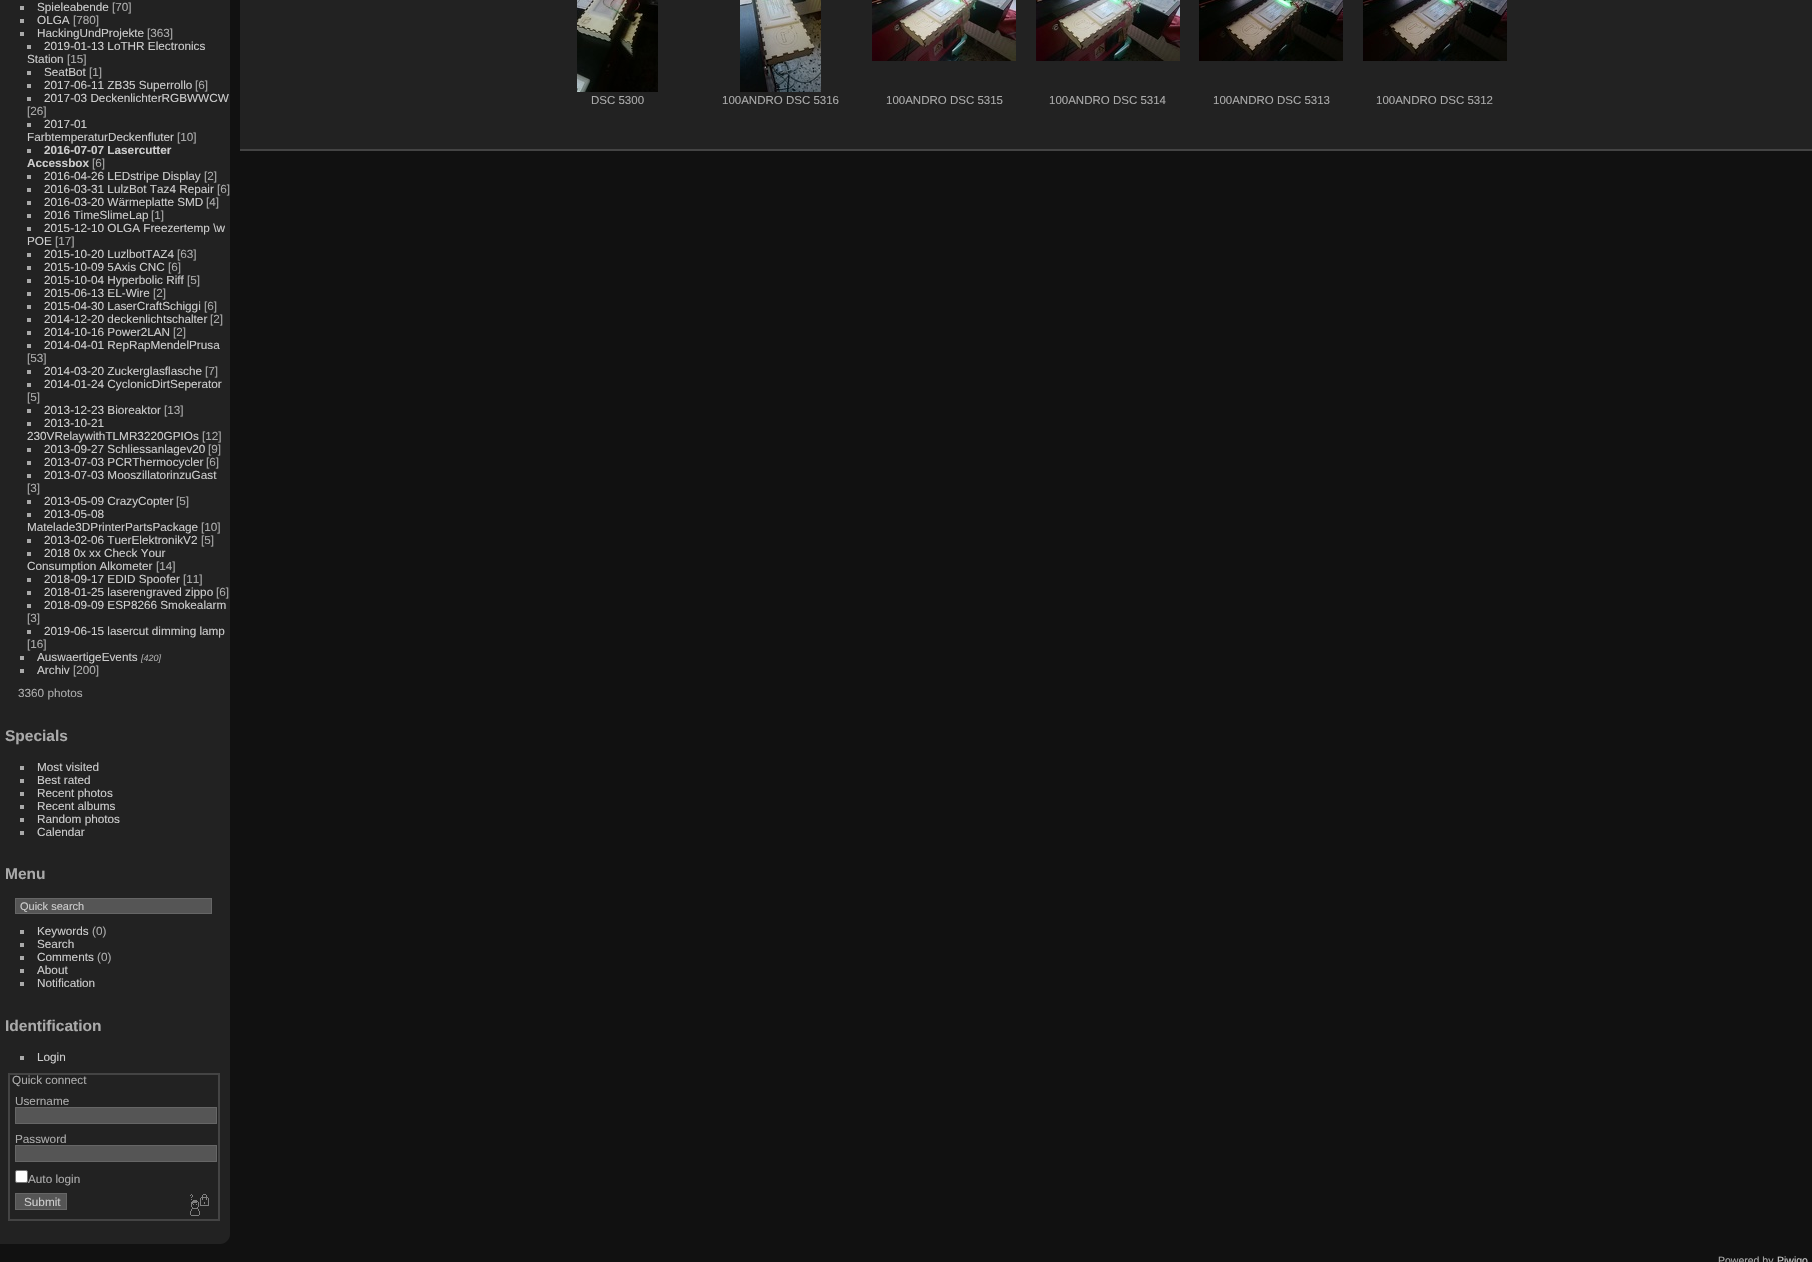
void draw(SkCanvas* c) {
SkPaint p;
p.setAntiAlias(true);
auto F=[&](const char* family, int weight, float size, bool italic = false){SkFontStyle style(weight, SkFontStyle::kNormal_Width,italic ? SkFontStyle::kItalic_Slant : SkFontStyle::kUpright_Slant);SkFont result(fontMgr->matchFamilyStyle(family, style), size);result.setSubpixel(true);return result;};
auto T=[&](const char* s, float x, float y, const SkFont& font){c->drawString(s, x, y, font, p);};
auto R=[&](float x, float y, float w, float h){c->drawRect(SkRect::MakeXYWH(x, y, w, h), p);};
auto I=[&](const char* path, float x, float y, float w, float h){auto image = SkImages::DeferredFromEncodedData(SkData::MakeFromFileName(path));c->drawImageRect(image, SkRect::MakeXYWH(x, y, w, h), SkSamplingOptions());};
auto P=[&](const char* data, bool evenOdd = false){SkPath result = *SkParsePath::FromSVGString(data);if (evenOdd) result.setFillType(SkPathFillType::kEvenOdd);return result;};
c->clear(0xff111111);
p.setColor(0xff222222);
c->drawPath(P("M0-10h220c5.5 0 10 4.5 10 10v1234c0 5.5-4.5 10-10 10h-220z"),p);
p.setColor(0xffaaaaaa);
R(20,6,4,4);
auto f1 = F("Liberation Sans",400,11.75);
p.setColor(0xffcccccc);
T("Spieleabende",37,11,f1);
p.setColor(0xffaaaaaa);
T("[70]",112,11,f1);
R(20,19,4,4);
p.setColor(0xffcccccc);
T("OLGA",37,24,f1);
p.setColor(0xffaaaaaa);
T("[780]",73,24,f1);
R(20,32,4,4);
p.setColor(0xffcccccc);
T("HackingUndProjekte",37,37,f1);
p.setColor(0xffaaaaaa);
T("[363]",147,37,f1);
R(27,45,4,4);
p.setColor(0xffcccccc);
T("2019-01-13 LoTHR Electronics",44,50,f1);
T("Station",27,63,f1);
p.setColor(0xffaaaaaa);
T("[15]",67,63,f1);
R(27,71,4,4);
p.setColor(0xffcccccc);
T("SeatBot",44,76,f1);
p.setColor(0xffaaaaaa);
T("[1]",89,76,f1);
R(27,84,4,4);
p.setColor(0xffcccccc);
T("2017-06-11 ZB35 Superrollo",44,89,f1);
p.setColor(0xffaaaaaa);
T("[6]",195,89,f1);
R(27,97,4,4);
p.setColor(0xffcccccc);
T("2017-03 DeckenlichterRGBWWCW",44,102,f1);
p.setColor(0xffaaaaaa);
T("[26]",27,115,f1);
R(27,123,4,4);
p.setColor(0xffcccccc);
T("2017-01",44,128,f1);
T("FarbtemperaturDeckenfluter",27,141,f1);
p.setColor(0xffaaaaaa);
T("[10]",177,141,f1);
R(27,149,4,4);
auto f2 = F("Liberation Sans",700,11.75);
p.setColor(0xffcccccc);
T("2016-07-07 Lasercutter",44,154,f2);
T("Accessbox",27,167,f2);
p.setColor(0xffaaaaaa);
T("[6]",92,167,f1);
R(27,175,4,4);
p.setColor(0xffcccccc);
T("2016-04-26 LEDstripe Display",44,180,f1);
p.setColor(0xffaaaaaa);
T("[2]",204,180,f1);
R(27,188,4,4);
p.setColor(0xffcccccc);
T("2016-03-31 LulzBot Taz4 Repair",44,193,f1);
p.setColor(0xffaaaaaa);
T("[6]",217,193,f1);
R(27,201,4,4);
p.setColor(0xffcccccc);
T("2016-03-20 Wärmeplatte SMD",44,206,f1);
p.setColor(0xffaaaaaa);
T("[4]",206,206,f1);
R(27,214,4,4);
p.setColor(0xffcccccc);
T("2016 TimeSlimeLap",44,219,f1);
p.setColor(0xffaaaaaa);
T("[1]",151,219,f1);
R(27,227,4,4);
p.setColor(0xffcccccc);
T("2015-12-10 OLGA Freezertemp \\w",44,232,f1);
T("POE",27,245,f1);
p.setColor(0xffaaaaaa);
T("[17]",55,245,f1);
R(27,253,4,4);
p.setColor(0xffcccccc);
T("2015-10-20 LuzlbotTAZ4",44,258,f1);
p.setColor(0xffaaaaaa);
T("[63]",177,258,f1);
R(27,266,4,4);
p.setColor(0xffcccccc);
T("2015-10-09 5Axis CNC",44,271,f1);
p.setColor(0xffaaaaaa);
T("[6]",168,271,f1);
R(27,279,4,4);
p.setColor(0xffcccccc);
T("2015-10-04 Hyperbolic Riff",44,284,f1);
p.setColor(0xffaaaaaa);
T("[5]",187,284,f1);
R(27,292,4,4);
p.setColor(0xffcccccc);
T("2015-06-13 EL-Wire",44,297,f1);
p.setColor(0xffaaaaaa);
T("[2]",153,297,f1);
R(27,305,4,4);
p.setColor(0xffcccccc);
T("2015-04-30 LaserCraftSchiggi",44,310,f1);
p.setColor(0xffaaaaaa);
T("[6]",204,310,f1);
R(27,318,4,4);
p.setColor(0xffcccccc);
T("2014-12-20 deckenlichtschalter",44,323,f1);
p.setColor(0xffaaaaaa);
T("[2]",210,323,f1);
R(27,331,4,4);
p.setColor(0xffcccccc);
T("2014-10-16 Power2LAN",44,336,f1);
p.setColor(0xffaaaaaa);
T("[2]",173,336,f1);
R(27,344,4,4);
p.setColor(0xffcccccc);
T("2014-04-01 RepRapMendelPrusa",44,349,f1);
p.setColor(0xffaaaaaa);
T("[53]",27,362,f1);
R(27,370,4,4);
p.setColor(0xffcccccc);
T("2014-03-20 Zuckerglasflasche",44,375,f1);
p.setColor(0xffaaaaaa);
T("[7]",205,375,f1);
R(27,383,4,4);
p.setColor(0xffcccccc);
T("2014-01-24 CyclonicDirtSeperator",44,388,f1);
p.setColor(0xffaaaaaa);
T("[5]",27,401,f1);
R(27,409,4,4);
p.setColor(0xffcccccc);
T("2013-12-23 Bioreaktor",44,414,f1);
p.setColor(0xffaaaaaa);
T("[13]",164,414,f1);
R(27,422,4,4);
p.setColor(0xffcccccc);
T("2013-10-21",44,427,f1);
T("230VRelaywithTLMR3220GPIOs",27,440,f1);
p.setColor(0xffaaaaaa);
T("[12]",202,440,f1);
R(27,448,4,4);
p.setColor(0xffcccccc);
T("2013-09-27 Schliessanlagev20",44,453,f1);
p.setColor(0xffaaaaaa);
T("[9]",208,453,f1);
R(27,461,4,4);
p.setColor(0xffcccccc);
T("2013-07-03 PCRThermocycler",44,466,f1);
p.setColor(0xffaaaaaa);
T("[6]",206,466,f1);
R(27,474,4,4);
p.setColor(0xffcccccc);
T("2013-07-03 MooszillatorinzuGast",44,479,f1);
p.setColor(0xffaaaaaa);
T("[3]",27,492,f1);
R(27,500,4,4);
p.setColor(0xffcccccc);
T("2013-05-09 CrazyCopter",44,505,f1);
p.setColor(0xffaaaaaa);
T("[5]",176,505,f1);
R(27,513,4,4);
p.setColor(0xffcccccc);
T("2013-05-08",44,518,f1);
T("Matelade3DPrinterPartsPackage",27,531,f1);
p.setColor(0xffaaaaaa);
T("[10]",201,531,f1);
R(27,539,4,4);
p.setColor(0xffcccccc);
T("2013-02-06 TuerElektronikV2",44,544,f1);
p.setColor(0xffaaaaaa);
T("[5]",201,544,f1);
R(27,552,4,4);
p.setColor(0xffcccccc);
T("2018 0x xx Check Your",44,557,f1);
T("Consumption Alkometer",27,570,f1);
p.setColor(0xffaaaaaa);
T("[14]",156,570,f1);
R(27,578,4,4);
p.setColor(0xffcccccc);
T("2018-09-17 EDID Spoofer",44,583,f1);
p.setColor(0xffaaaaaa);
T("[11]",183,583,f1);
R(27,591,4,4);
p.setColor(0xffcccccc);
T("2018-01-25 laserengraved zippo",44,596,f1);
p.setColor(0xffaaaaaa);
T("[6]",216,596,f1);
R(27,604,4,4);
p.setColor(0xffcccccc);
T("2018-09-09 ESP8266 Smokealarm",44,609,f1);
p.setColor(0xffaaaaaa);
T("[3]",27,622,f1);
R(27,630,4,4);
p.setColor(0xffcccccc);
T("2019-06-15 lasercut dimming lamp",44,635,f1);
p.setColor(0xffaaaaaa);
T("[16]",27,648,f1);
R(20,656,4,4);
p.setColor(0xffcccccc);
T("AuswaertigeEvents",37,661,f1);
auto f3 = F("Liberation Sans",400,9,true);
p.setColor(0xffaaaaaa);
T("[420]",141,661,f3);
R(20,669,4,4);
p.setColor(0xffcccccc);
T("Archiv",37,674,f1);
p.setColor(0xffaaaaaa);
T("[200]",73,674,f1);
T("3360 photos",18,697,f1);
auto f4 = F("Liberation Sans",700,15.5);
T("Specials",5,741,f4);
R(20,766,4,4);
p.setColor(0xffcccccc);
T("Most visited",37,771,f1);
p.setColor(0xffaaaaaa);
R(20,779,4,4);
p.setColor(0xffcccccc);
T("Best rated",37,784,f1);
p.setColor(0xffaaaaaa);
R(20,792,4,4);
p.setColor(0xffcccccc);
T("Recent photos",37,797,f1);
p.setColor(0xffaaaaaa);
R(20,805,4,4);
p.setColor(0xffcccccc);
T("Recent albums",37,810,f1);
p.setColor(0xffaaaaaa);
R(20,818,4,4);
p.setColor(0xffcccccc);
T("Random photos",37,823,f1);
p.setColor(0xffaaaaaa);
R(20,831,4,4);
p.setColor(0xffcccccc);
T("Calendar",37,836,f1);
p.setColor(0xffaaaaaa);
T("Menu",5,879,f4);
p.setColor(0xff555555);
c->drawRect(SkRect::MakeXYWH(15.5,898.5,196,15),p);
p.setStroke(true);
p.setStrokeWidth(1);
p.setColor(0xff666666);
c->drawRect(SkRect::MakeXYWH(15.5,898.5,196,15),p);
auto f5 = F("Liberation Sans",400,11);
p.setStroke(false);
p.setColor(0xffcccccc);
T("Quick search",20,910,f5);
p.setColor(0xffaaaaaa);
R(20,930,4,4);
p.setColor(0xffcccccc);
T("Keywords",37,935,f1);
p.setColor(0xffaaaaaa);
T("(0)",92,935,f1);
R(20,943,4,4);
p.setColor(0xffcccccc);
T("Search",37,948,f1);
p.setColor(0xffaaaaaa);
R(20,956,4,4);
p.setColor(0xffcccccc);
T("Comments",37,961,f1);
p.setColor(0xffaaaaaa);
T("(0)",97,961,f1);
R(20,969,4,4);
p.setColor(0xffcccccc);
T("About",37,974,f1);
p.setColor(0xffaaaaaa);
R(20,982,4,4);
p.setColor(0xffcccccc);
T("Notification",37,987,f1);
p.setColor(0xffaaaaaa);
T("Identification",5,1031,f4);
R(20,1056,4,4);
p.setColor(0xffcccccc);
T("Login",37,1061,f1);
p.setStroke(true);
p.setStrokeWidth(2);
p.setColor(0xff444444);
c->drawRect(SkRect::MakeXYWH(9,1074,210,146),p);
p.setStroke(false);
p.setColor(0xffaaaaaa);
T("Quick connect",12,1084,f1);
T("Username",15,1105,f1);
p.setColor(0xff555555);
c->drawRect(SkRect::MakeXYWH(15.5,1107.5,201,16),p);
p.setStroke(true);
p.setStrokeWidth(1);
p.setColor(0xff666666);
c->drawRect(SkRect::MakeXYWH(15.5,1107.5,201,16),p);
p.setStroke(false);
p.setColor(0xffaaaaaa);
T("Password",15,1143,f1);
p.setColor(0xff555555);
c->drawRect(SkRect::MakeXYWH(15.5,1145.5,201,16),p);
p.setStroke(true);
p.setColor(0xff666666);
c->drawRect(SkRect::MakeXYWH(15.5,1145.5,201,16),p);
p.setStroke(false);
p.setColor(0xffffffff);
c->drawRoundRect(SkRect::MakeXYWH(15.5,1170.5,12,12),1.5,1.5,p);
p.setStroke(true);
p.setColor(0xff767676);
c->drawRoundRect(SkRect::MakeXYWH(15.5,1170.5,12,12),1.5,1.5,p);
p.setStroke(false);
p.setColor(0xffaaaaaa);
T("Auto login",28,1183,f1);
p.setColor(0xff555555);
c->drawRect(SkRect::MakeXYWH(15.5,1193.5,51,16),p);
p.setStroke(true);
p.setColor(0xff666666);
c->drawRect(SkRect::MakeXYWH(15.5,1193.5,51,16),p);
p.setStroke(false);
p.setColor(0xffcccccc);
T("Submit",24,1206,f1);
I("1.png",190,1194,19,22);
p.setColor(0xff222222);
R(240,0,1572,149);
p.setColor(0xff444444);
R(240,149,1572,2);
I("2.png",577,0,81,92);
auto f6 = F("Liberation Sans",400,11.5);
p.setColor(0xffaaaaaa);
T("DSC 5300",591,104,f6);
I("3.png",740,0,81,92);
T("100ANDRO DSC 5316",722,104,f6);
I("4.png",872,0,144,61);
T("100ANDRO DSC 5315",886,104,f6);
I("5.png",1036,0,144,61);
T("100ANDRO DSC 5314",1049,104,f6);
I("6.png",1199,0,144,61);
T("100ANDRO DSC 5313",1213,104,f6);
I("7.png",1363,0,144,61);
T("100ANDRO DSC 5312",1376,104,f6);
auto f7 = F("Liberation Sans",400,10.5);
T("Powered by",1718,1264,f7);
p.setColor(0xffcccccc);
T("Piwigo",1777,1264,f7);
}
